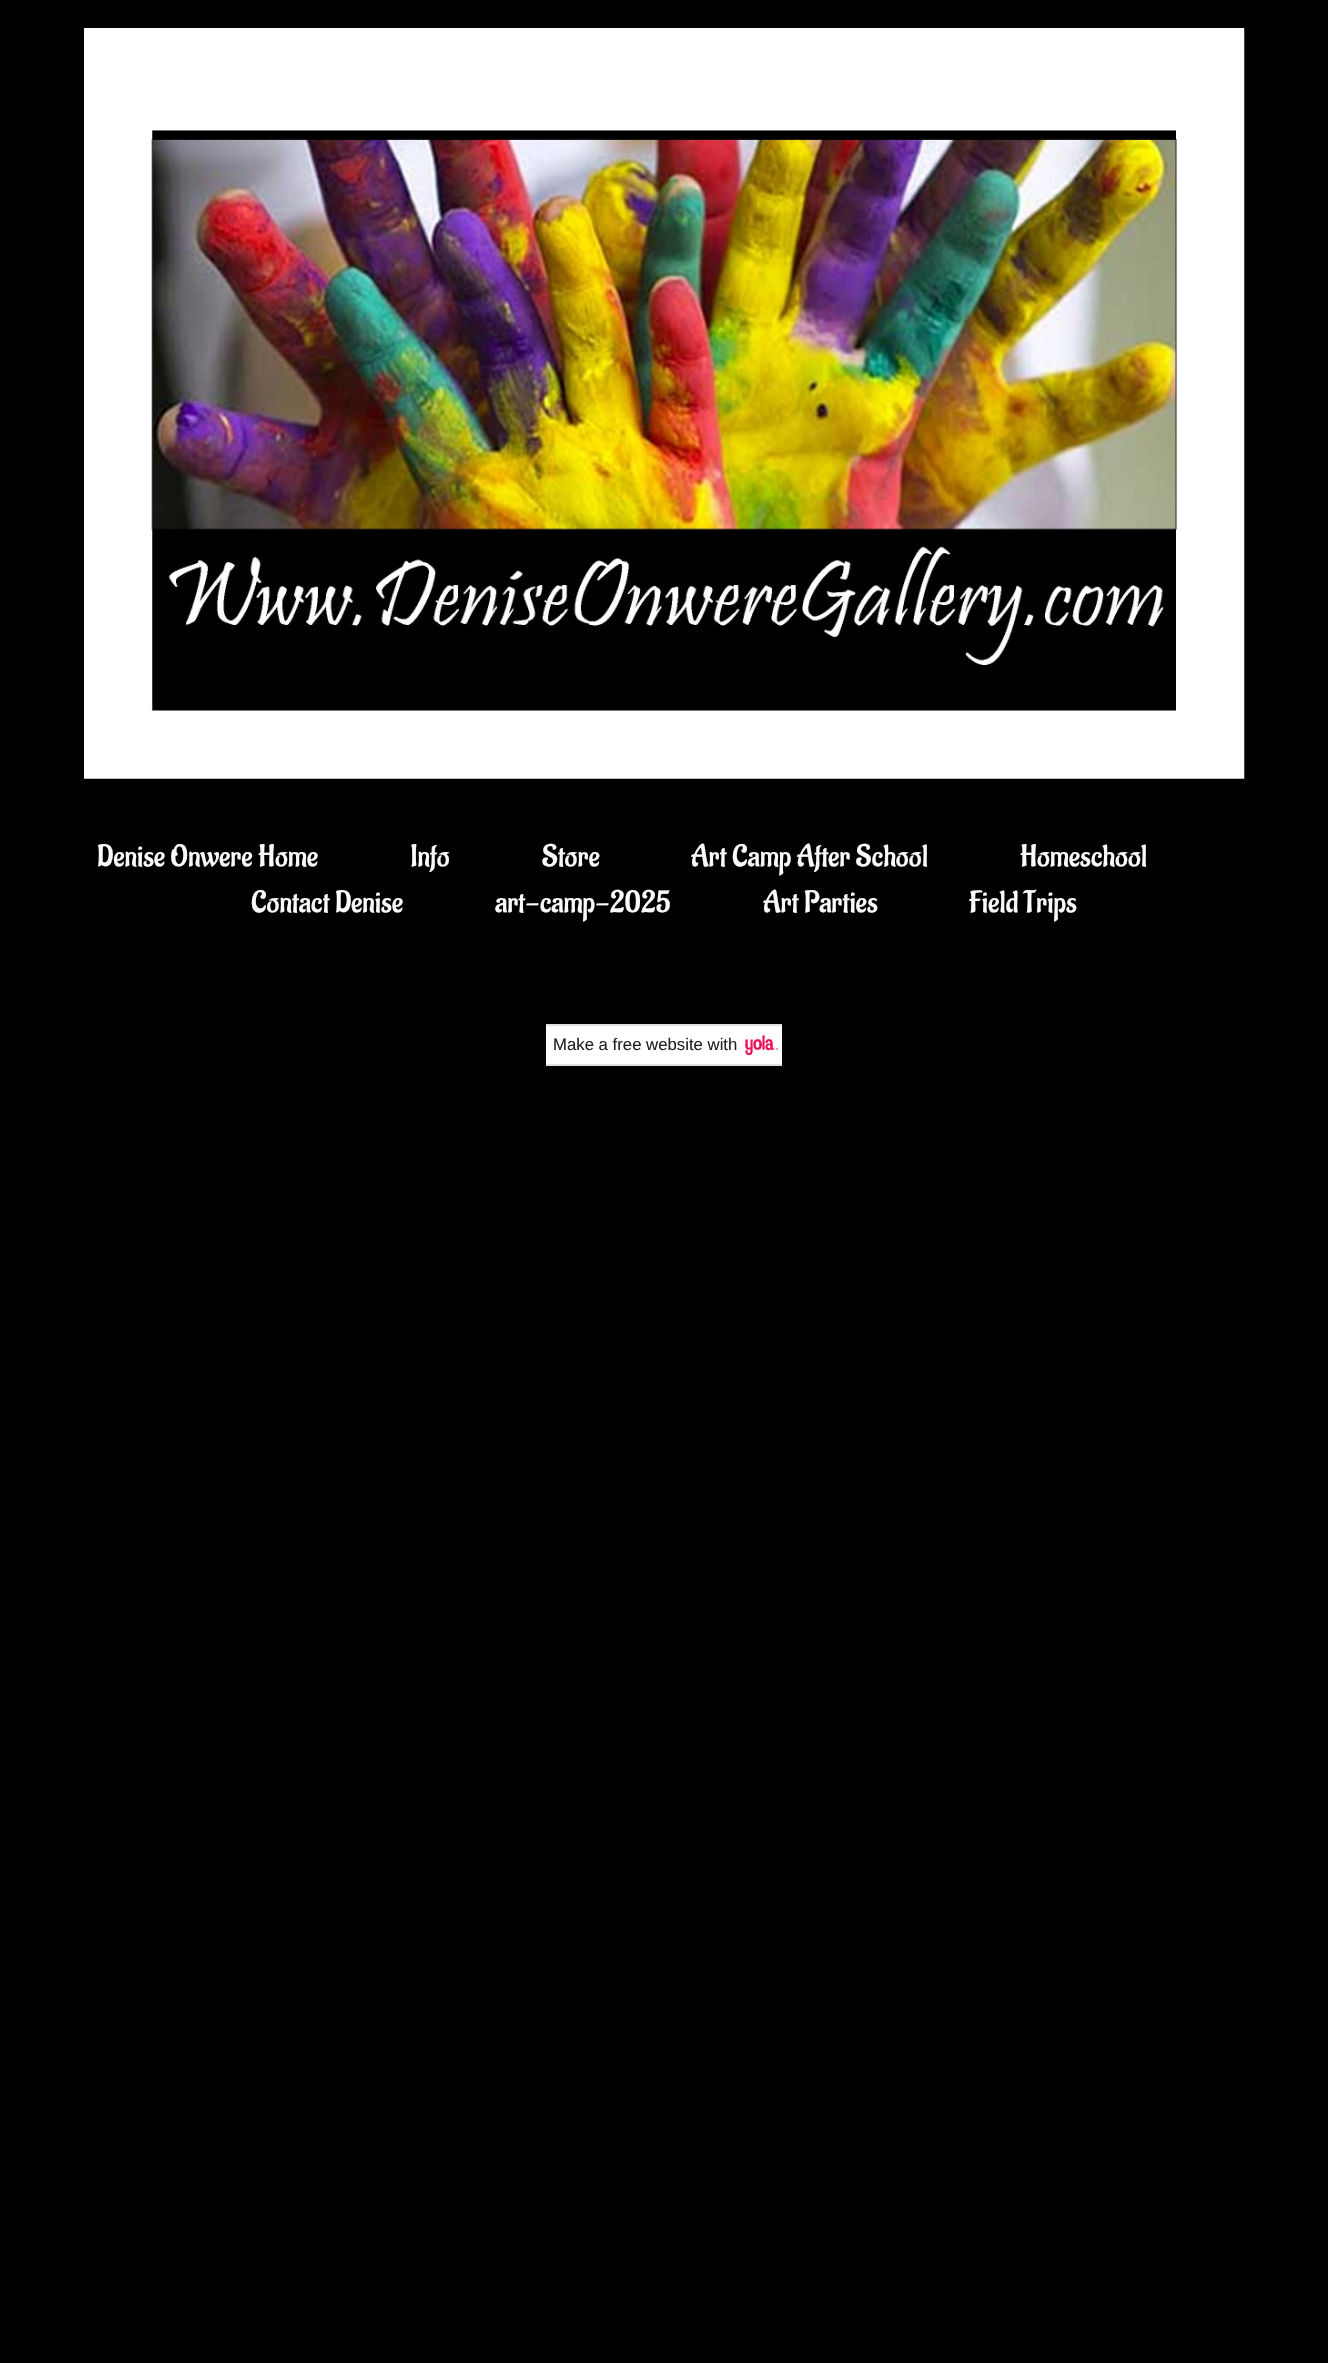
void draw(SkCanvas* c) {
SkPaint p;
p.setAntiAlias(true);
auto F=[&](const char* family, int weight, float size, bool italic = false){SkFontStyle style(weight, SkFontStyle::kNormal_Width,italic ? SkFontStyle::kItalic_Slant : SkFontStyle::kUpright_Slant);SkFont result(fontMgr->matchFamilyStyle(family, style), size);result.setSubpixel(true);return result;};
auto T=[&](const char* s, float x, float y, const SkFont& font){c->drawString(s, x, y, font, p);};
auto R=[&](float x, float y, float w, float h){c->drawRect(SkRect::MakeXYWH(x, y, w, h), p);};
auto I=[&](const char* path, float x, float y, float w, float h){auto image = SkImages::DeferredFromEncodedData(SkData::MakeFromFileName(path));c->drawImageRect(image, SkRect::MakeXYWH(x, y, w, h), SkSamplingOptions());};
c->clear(0xff000000);
p.setColor(0xff030000);
R(0,0,1328,956);
I("1.png",84,28,1161,751);
p.setColor(0xff000000);
R(0,835,1328,93);
auto f1 = F("Aladin",400,30.75);
p.setColor(0xfffafafa);
T("Denise Onwere Home",97,866,f1);
T("Info",410,866,f1);
T("Store",542,866,f1);
T("Art Camp After School",691,866,f1);
T("Homeschool",1020,866,f1);
T("Contact Denise",251,912,f1);
T("art-camp-2025",495,912,f1);
T("Art Parties",763,912,f1);
T("Field Trips",969,912,f1);
p.setColor(0xffffffff);
R(546,1026,236,38);
I("2.png",745,1035,33,21);
p.setColor(0xffe1e1e1);
R(546,1024,236,2);
R(546,1064,236,2);
auto f2 = F("Liberation Sans",400,16.75);
p.setColor(0xff222222);
T("Make a free website with",553,1050,f2);
}
